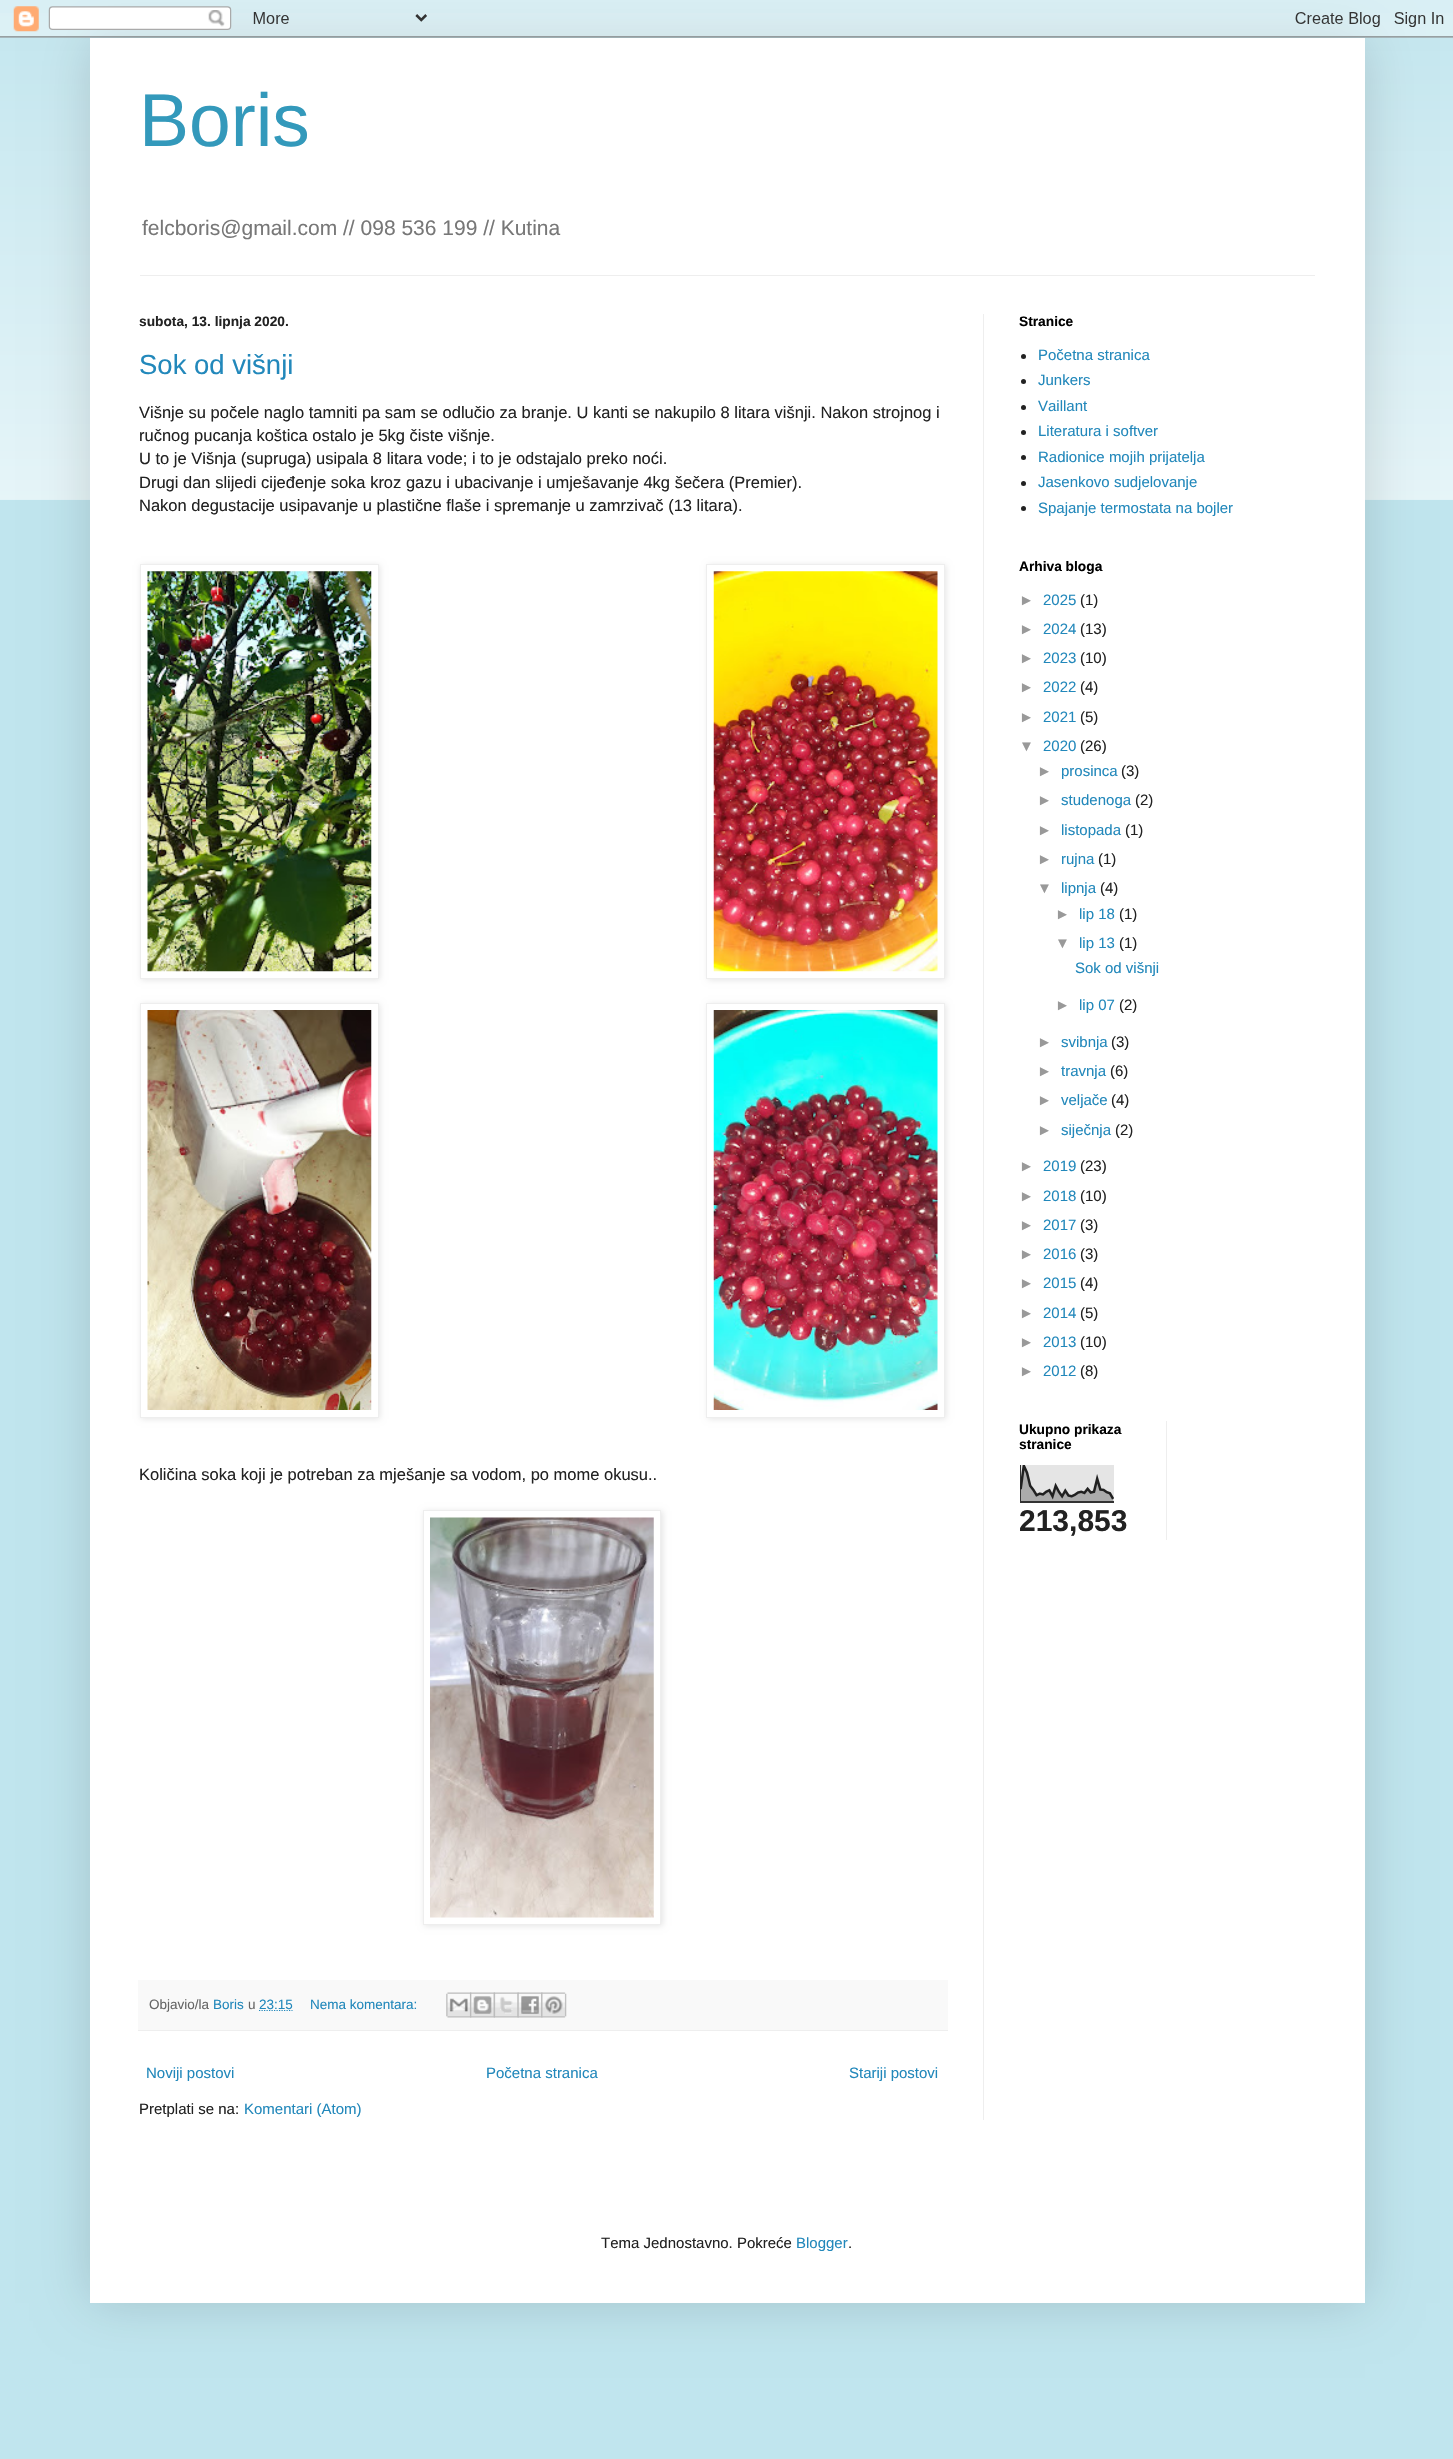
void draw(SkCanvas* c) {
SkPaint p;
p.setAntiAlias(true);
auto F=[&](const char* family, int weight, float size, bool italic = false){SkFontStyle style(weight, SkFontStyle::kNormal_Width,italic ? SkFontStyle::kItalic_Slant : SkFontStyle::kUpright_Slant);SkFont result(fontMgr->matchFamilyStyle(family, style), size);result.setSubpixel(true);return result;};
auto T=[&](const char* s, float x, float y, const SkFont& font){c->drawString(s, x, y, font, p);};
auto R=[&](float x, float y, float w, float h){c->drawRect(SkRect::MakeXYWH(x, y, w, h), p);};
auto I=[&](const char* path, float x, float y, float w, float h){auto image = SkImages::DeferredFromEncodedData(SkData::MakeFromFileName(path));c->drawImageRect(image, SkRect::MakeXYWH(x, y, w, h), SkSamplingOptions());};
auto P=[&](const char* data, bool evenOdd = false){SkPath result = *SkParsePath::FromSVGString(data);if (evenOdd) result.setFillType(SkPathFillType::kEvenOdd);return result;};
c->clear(0xffc0e5ee);
I("2.png",0,13,1453,487);
p.setColor(0x26000000);
p.setMaskFilter(SkMaskFilter::MakeBlur(kNormal_SkBlurStyle, 25));
c->drawRect(SkRect::MakeXYWH(90,38,1275,2265),p);
p.setMaskFilter(nullptr);
I("1.png",0,0,1453,38);
p.setColor(0xffffffff);
R(90,38,1275,2265);
auto f1 = F("Liberation Sans",400,75);
p.setColor(0xff3399bb);
T("Boris",139,146,f1);
auto f2 = F("Liberation Sans",400,21);
p.setColor(0xff777777);
T("felcboris@gmail.com // 098 536 199 // Kutina",142,235,f2);
p.setColor(0xffeeeeee);
R(140,275,1175,1);
R(983,314,1,1806);
auto f3 = F("Liberation Sans",700,13.75);
p.setColor(0xff222222);
T("subota, 13. lipnja 2020.",139,326,f3);
auto f4 = F("Liberation Sans",400,27.5);
p.setColor(0xff2288bb);
T("Sok od višnji",139,374,f4);
auto f5 = F("Liberation Sans",400,16.5);
p.setColor(0xff222222);
T("Višnje su počele naglo tamniti pa sam se odlučio za branje. U kanti se nakupilo 8 litara višnji. Nakon strojnog i",139,418,f5);
T("ručnog pucanja koštica ostalo je 5kg čiste višnje.",139,441,f5);
T("U to je Višnja (supruga) usipala 8 litara vode; i to je odstajalo preko noći.",139,464,f5);
T("Drugi dan slijedi cijeđenje soka kroz gazu i ubacivanje i umješavanje 4kg šečera (Premier).",139,488,f5);
T("Nakon degustacije usipavanje u plastične flaše i spremanje u zamrzivač (13 litara).",139,511,f5);
p.setColor(0x1a000000);
p.setMaskFilter(SkMaskFilter::MakeBlur(kNormal_SkBlurStyle, 3));
c->drawRect(SkRect::MakeXYWH(141,565,239,415),p);
p.setMaskFilter(nullptr);
p.setColor(0xffffffff);
c->drawRect(SkRect::MakeXYWH(140.5,564.5,238,414),p);
p.setStroke(true);
p.setStrokeWidth(1);
p.setColor(0xffeeeeee);
c->drawRect(SkRect::MakeXYWH(140.5,564.5,238,414),p);
I("3.png",147,571,225,401);
p.setStroke(false);
p.setColor(0x1a000000);
p.setMaskFilter(SkMaskFilter::MakeBlur(kNormal_SkBlurStyle, 3));
c->drawRect(SkRect::MakeXYWH(708,565,238,415),p);
p.setMaskFilter(nullptr);
p.setColor(0xffffffff);
c->drawRect(SkRect::MakeXYWH(706.5,564.5,238,414),p);
p.setStroke(true);
p.setColor(0xffeeeeee);
c->drawRect(SkRect::MakeXYWH(706.5,564.5,238,414),p);
I("4.png",713,571,225,401);
p.setStroke(false);
p.setColor(0x1a000000);
p.setMaskFilter(SkMaskFilter::MakeBlur(kNormal_SkBlurStyle, 3));
c->drawRect(SkRect::MakeXYWH(141,1004,239,415),p);
p.setMaskFilter(nullptr);
p.setColor(0xffffffff);
c->drawRect(SkRect::MakeXYWH(140.5,1003.5,238,414),p);
p.setStroke(true);
p.setColor(0xffeeeeee);
c->drawRect(SkRect::MakeXYWH(140.5,1003.5,238,414),p);
I("5.png",147,1010,225,400);
p.setStroke(false);
p.setColor(0x1a000000);
p.setMaskFilter(SkMaskFilter::MakeBlur(kNormal_SkBlurStyle, 3));
c->drawRect(SkRect::MakeXYWH(708,1004,238,415),p);
p.setMaskFilter(nullptr);
p.setColor(0xffffffff);
c->drawRect(SkRect::MakeXYWH(706.5,1003.5,238,414),p);
p.setStroke(true);
p.setColor(0xffeeeeee);
c->drawRect(SkRect::MakeXYWH(706.5,1003.5,238,414),p);
I("6.png",713,1010,225,400);
p.setStroke(false);
p.setColor(0xff222222);
T("Količina soka koji je potreban za mješanje sa vodom, po mome okusu..",139,1480,f5);
c->save();
c->clipPath(P("M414 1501h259v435h-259zm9 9h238v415h-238z",true),true);
p.setColor(0x1a000000);
p.setMaskFilter(SkMaskFilter::MakeBlur(kNormal_SkBlurStyle, 3));
c->drawRect(SkRect::MakeXYWH(424,1511,239,415),p);
p.setMaskFilter(nullptr);
c->restore();
p.setStroke(true);
p.setColor(0xffeeeeee);
c->drawRect(SkRect::MakeXYWH(423.5,1510.5,237,414),p);
I("7.png",430,1517,224,401);
p.setStroke(false);
p.setColor(0xfff9f9f9);
R(138,1980,810,50);
p.setColor(0xffeeeeee);
R(138,2030,810,1);
auto f6 = F("Liberation Sans",400,13.5);
p.setColor(0xff666666);
T("Objavio/la",149,2009,f6);
p.setColor(0xff2288bb);
T("Boris",213,2009,f6);
p.setColor(0xff666666);
T("u",248,2009,f6);
p.setStroke(true);
p.setStrokeWidth(1.2);
p.setColor(0xff2288bb);
p.setPathEffect(SkDashPathEffect::Make({{1.25f,1.25f}}, 0));
c->drawPath(P("M259 2010.5h33.5"),p);
p.setPathEffect(nullptr);
p.setStroke(false);
T("23:15",259,2009,f6);
T("Nema komentara:",310,2009,f6);
I("8.png",446,1992,26,26);
I("9.png",470,1992,25,26);
I("10.png",493,1992,26,26);
I("11.png",517,1992,26,26);
I("12.png",541,1992,26,26);
auto f7 = F("Liberation Sans",400,15);
T("Noviji postovi",146,2078,f7);
T("Početna stranica",486,2078,f7);
T("Stariji postovi",849,2078,f7);
p.setColor(0xff222222);
T("Pretplati se na:",139,2114,f7);
p.setColor(0xff2288bb);
T("Komentari (Atom)",244,2114,f7);
p.setColor(0xff000000);
T("Stranice",1019,326,f3);
p.setColor(0xff222222);
c->drawCircle(1023.5,356.5,2.5,p);
p.setColor(0xff2288bb);
T("Početna stranica",1038,360,f7);
p.setColor(0xff222222);
c->drawCircle(1023.5,381.5,2.5,p);
p.setColor(0xff2288bb);
T("Junkers",1038,385,f7);
p.setColor(0xff222222);
c->drawCircle(1023.5,407.5,2.5,p);
p.setColor(0xff2288bb);
T("Vaillant",1038,411,f7);
p.setColor(0xff222222);
c->drawCircle(1023.5,432.5,2.5,p);
p.setColor(0xff2288bb);
T("Literatura i softver",1038,436,f7);
p.setColor(0xff222222);
c->drawCircle(1023.5,457.5,2.5,p);
p.setColor(0xff2288bb);
T("Radionice mojih prijatelja",1038,462,f7);
p.setColor(0xff222222);
c->drawCircle(1023.5,483.5,2.5,p);
p.setColor(0xff2288bb);
T("Jasenkovo sudjelovanje",1038,487,f7);
p.setColor(0xff222222);
c->drawCircle(1023.5,508.5,2.5,p);
p.setColor(0xff2288bb);
T("Spajanje termostata na bojler",1038,513,f7);
p.setColor(0xff000000);
T("Arhiva bloga",1019,571,f3);
p.setColor(0xff999999);
T("►",1019,605,f7);
p.setColor(0xff2288bb);
T("2025",1043,605,f7);
p.setColor(0xff222222);
T("(1)",1080,605,f7);
p.setColor(0xff999999);
T("►",1019,634,f7);
p.setColor(0xff2288bb);
T("2024",1043,634,f7);
p.setColor(0xff222222);
T("(13)",1080,634,f7);
p.setColor(0xff999999);
T("►",1019,663,f7);
p.setColor(0xff2288bb);
T("2023",1043,663,f7);
p.setColor(0xff222222);
T("(10)",1080,663,f7);
p.setColor(0xff999999);
T("►",1019,692,f7);
p.setColor(0xff2288bb);
T("2022",1043,692,f7);
p.setColor(0xff222222);
T("(4)",1080,692,f7);
p.setColor(0xff999999);
T("►",1019,722,f7);
p.setColor(0xff2288bb);
T("2021",1043,722,f7);
p.setColor(0xff222222);
T("(5)",1080,722,f7);
p.setColor(0xff999999);
T("▼",1019,751,f7);
p.setColor(0xff2288bb);
T("2020",1043,751,f7);
p.setColor(0xff222222);
T("(26)",1080,751,f7);
p.setColor(0xff999999);
T("►",1037,776,f7);
p.setColor(0xff2288bb);
T("prosinca",1061,776,f7);
p.setColor(0xff222222);
T("(3)",1121,776,f7);
p.setColor(0xff999999);
T("►",1037,805,f7);
p.setColor(0xff2288bb);
T("studenoga",1061,805,f7);
p.setColor(0xff222222);
T("(2)",1135,805,f7);
p.setColor(0xff999999);
T("►",1037,835,f7);
p.setColor(0xff2288bb);
T("listopada",1061,835,f7);
p.setColor(0xff222222);
T("(1)",1125,835,f7);
p.setColor(0xff999999);
T("►",1037,864,f7);
p.setColor(0xff2288bb);
T("rujna",1061,864,f7);
p.setColor(0xff222222);
T("(1)",1098,864,f7);
p.setColor(0xff999999);
T("▼",1037,893,f7);
p.setColor(0xff2288bb);
T("lipnja",1061,893,f7);
p.setColor(0xff222222);
T("(4)",1100,893,f7);
p.setColor(0xff999999);
T("►",1055,919,f7);
p.setColor(0xff2288bb);
T("lip 18",1079,919,f7);
p.setColor(0xff222222);
T("(1)",1119,919,f7);
p.setColor(0xff999999);
T("▼",1055,948,f7);
p.setColor(0xff2288bb);
T("lip 13",1079,948,f7);
p.setColor(0xff222222);
T("(1)",1119,948,f7);
p.setColor(0xff2288bb);
T("Sok od višnji",1075,973,f7);
p.setColor(0xff999999);
T("►",1055,1010,f7);
p.setColor(0xff2288bb);
T("lip 07",1079,1010,f7);
p.setColor(0xff222222);
T("(2)",1119,1010,f7);
p.setColor(0xff999999);
T("►",1037,1047,f7);
p.setColor(0xff2288bb);
T("svibnja",1061,1047,f7);
p.setColor(0xff222222);
T("(3)",1111,1047,f7);
p.setColor(0xff999999);
T("►",1037,1076,f7);
p.setColor(0xff2288bb);
T("travnja",1061,1076,f7);
p.setColor(0xff222222);
T("(6)",1110,1076,f7);
p.setColor(0xff999999);
T("►",1037,1105,f7);
p.setColor(0xff2288bb);
T("veljače",1061,1105,f7);
p.setColor(0xff222222);
T("(4)",1111,1105,f7);
p.setColor(0xff999999);
T("►",1037,1135,f7);
p.setColor(0xff2288bb);
T("siječnja",1061,1135,f7);
p.setColor(0xff222222);
T("(2)",1115,1135,f7);
p.setColor(0xff999999);
T("►",1019,1171,f7);
p.setColor(0xff2288bb);
T("2019",1043,1171,f7);
p.setColor(0xff222222);
T("(23)",1080,1171,f7);
p.setColor(0xff999999);
T("►",1019,1201,f7);
p.setColor(0xff2288bb);
T("2018",1043,1201,f7);
p.setColor(0xff222222);
T("(10)",1080,1201,f7);
p.setColor(0xff999999);
T("►",1019,1230,f7);
p.setColor(0xff2288bb);
T("2017",1043,1230,f7);
p.setColor(0xff222222);
T("(3)",1080,1230,f7);
p.setColor(0xff999999);
T("►",1019,1259,f7);
p.setColor(0xff2288bb);
T("2016",1043,1259,f7);
p.setColor(0xff222222);
T("(3)",1080,1259,f7);
p.setColor(0xff999999);
T("►",1019,1288,f7);
p.setColor(0xff2288bb);
T("2015",1043,1288,f7);
p.setColor(0xff222222);
T("(4)",1080,1288,f7);
p.setColor(0xff999999);
T("►",1019,1318,f7);
p.setColor(0xff2288bb);
T("2014",1043,1318,f7);
p.setColor(0xff222222);
T("(5)",1080,1318,f7);
p.setColor(0xff999999);
T("►",1019,1347,f7);
p.setColor(0xff2288bb);
T("2013",1043,1347,f7);
p.setColor(0xff222222);
T("(10)",1080,1347,f7);
p.setColor(0xff999999);
T("►",1019,1376,f7);
p.setColor(0xff2288bb);
T("2012",1043,1376,f7);
p.setColor(0xff222222);
T("(8)",1080,1376,f7);
p.setColor(0xff000000);
T("Ukupno prikaza",1019,1434,f3);
T("stranice",1019,1449,f3);
I("13.png",1020,1465,94,38);
auto f8 = F("Liberation Sans",700,30);
p.setColor(0xff222222);
T("213,853",1019,1531,f8);
p.setColor(0xffeeeeee);
R(1166,1421,1,119);
p.setColor(0xff222222);
T("Tema Jednostavno. Pokreće",601,2248,f7);
p.setColor(0xff2288bb);
T("Blogger",796,2248,f7);
p.setColor(0xff222222);
T(".",848,2248,f7);
}
